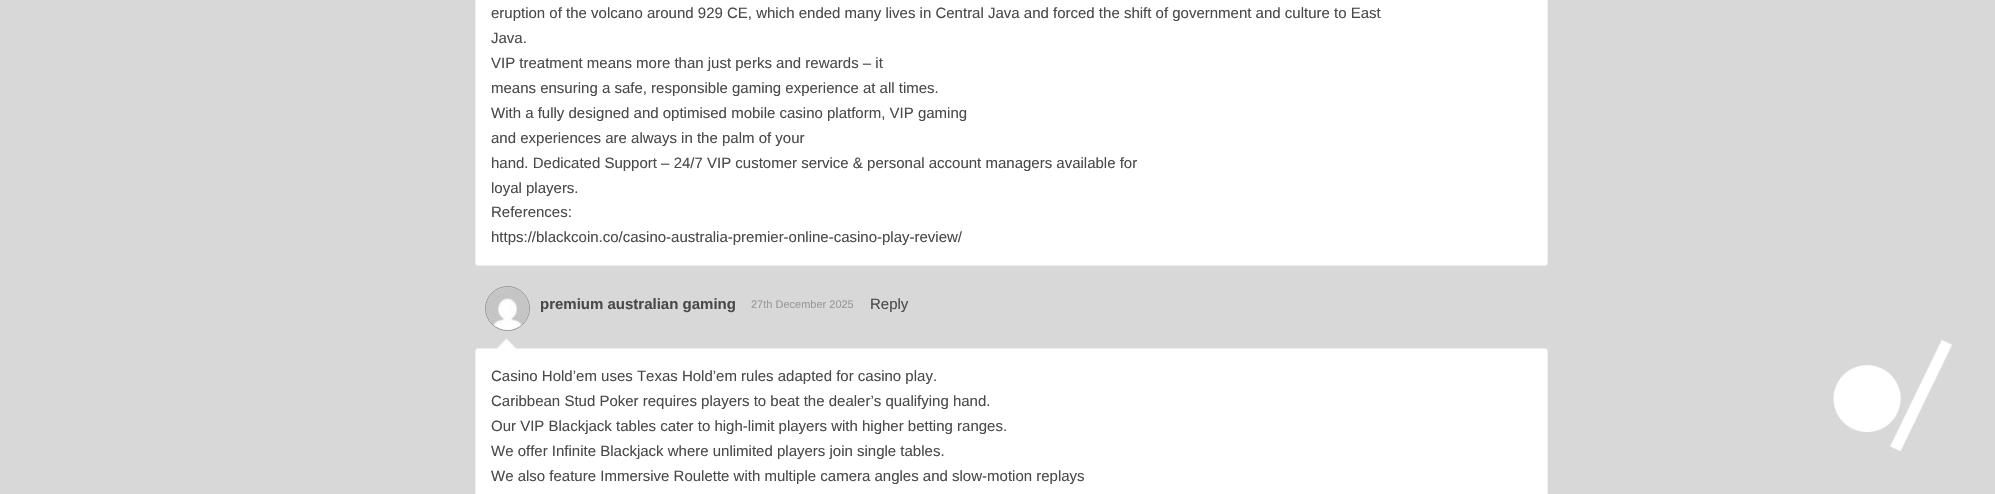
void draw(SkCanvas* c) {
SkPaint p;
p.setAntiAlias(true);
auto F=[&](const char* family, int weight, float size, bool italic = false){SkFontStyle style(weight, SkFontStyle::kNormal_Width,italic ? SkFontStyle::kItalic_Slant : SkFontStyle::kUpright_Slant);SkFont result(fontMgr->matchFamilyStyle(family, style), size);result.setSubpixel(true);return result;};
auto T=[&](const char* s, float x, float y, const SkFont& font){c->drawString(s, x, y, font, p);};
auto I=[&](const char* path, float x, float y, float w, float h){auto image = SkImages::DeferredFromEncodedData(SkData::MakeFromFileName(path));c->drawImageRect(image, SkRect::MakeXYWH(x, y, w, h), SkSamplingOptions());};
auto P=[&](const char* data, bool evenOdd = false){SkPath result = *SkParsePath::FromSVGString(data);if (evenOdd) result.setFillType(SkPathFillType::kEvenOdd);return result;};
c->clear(0xffd8d8d8);
p.setColor(0xffffffff);
c->drawRoundRect(SkRect::MakeXYWH(475.5,-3.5,1072,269),2.5,2.5,p);
p.setStroke(true);
p.setStrokeWidth(1);
p.setColor(0xffeeeeee);
c->drawRoundRect(SkRect::MakeXYWH(475.5,-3.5,1072,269),2.5,2.5,p);
auto f1 = F("Liberation Sans",400,15);
p.setStroke(false);
p.setColor(0xff4a4a4a);
T("eruption of the volcano around 929 CE, which ended many lives in Central Java and forced the shift of government and culture to East",491,18,f1);
T("Java.",491,43,f1);
T("VIP treatment means more than just perks and rewards – it",491,68,f1);
T("means ensuring a safe, responsible gaming experience at all times.",491,93,f1);
T("With a fully designed and optimised mobile casino platform, VIP gaming",491,118,f1);
T("and experiences are always in the palm of your",491,143,f1);
T("hand. Dedicated Support – 24/7 VIP customer service & personal account managers available for",491,168,f1);
T("loyal players.",491,193,f1);
T("References:",491,217,f1);
T("https://blackcoin.co/casino-australia-premier-online-casino-play-review/",491,242,f1);
p.setStroke(true);
p.setColor(0xff979797);
c->drawCircle(507.5,308.5,22,p);
I("1.png",486,287,43,43);
auto f2 = F("Liberation Sans",700,15);
p.setStroke(false);
p.setColor(0xff4a4a4a);
T("premium australian gaming",540,309,f2);
auto f3 = F("Liberation Sans",400,11);
p.setColor(0xff999999);
T("27th December 2025",751,308,f3);
p.setColor(0xff4a4a4a);
T("Reply",870,309,f1);
p.setColor(0xffffffff);
c->drawRoundRect(SkRect::MakeXYWH(475.5,348.5,1072,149),2.5,2.5,p);
p.setStroke(true);
p.setColor(0xffeeeeee);
c->drawRoundRect(SkRect::MakeXYWH(475.5,348.5,1072,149),2.5,2.5,p);
p.setStroke(false);
p.setColor(0xffffffff);
c->drawPath(P("M506.5 338.5l10 10l-10 9.5l-10-9.5z"),p);
p.setColor(0xffeeeeee);
c->drawPath(P("M506.5 338.5l10 10l-1 .5l-9.5-10z"),p);
c->drawPath(P("M506.5 338.5l.5 .5l-9.5 10l-1-.5z"),p);
p.setColor(0xff4a4a4a);
T("Casino Hold’em uses Texas Hold’em rules adapted for casino play.",491,381,f1);
T("Caribbean Stud Poker requires players to beat the dealer’s qualifying hand.",491,406,f1);
T("Our VIP Blackjack tables cater to high-limit players with higher betting ranges.",491,431,f1);
T("We offer Infinite Blackjack where unlimited players join single tables.",491,456,f1);
T("We also feature Immersive Roulette with multiple camera angles and slow-motion replays",491,481,f1);
I("2.png",1833,340,119,111);
}
